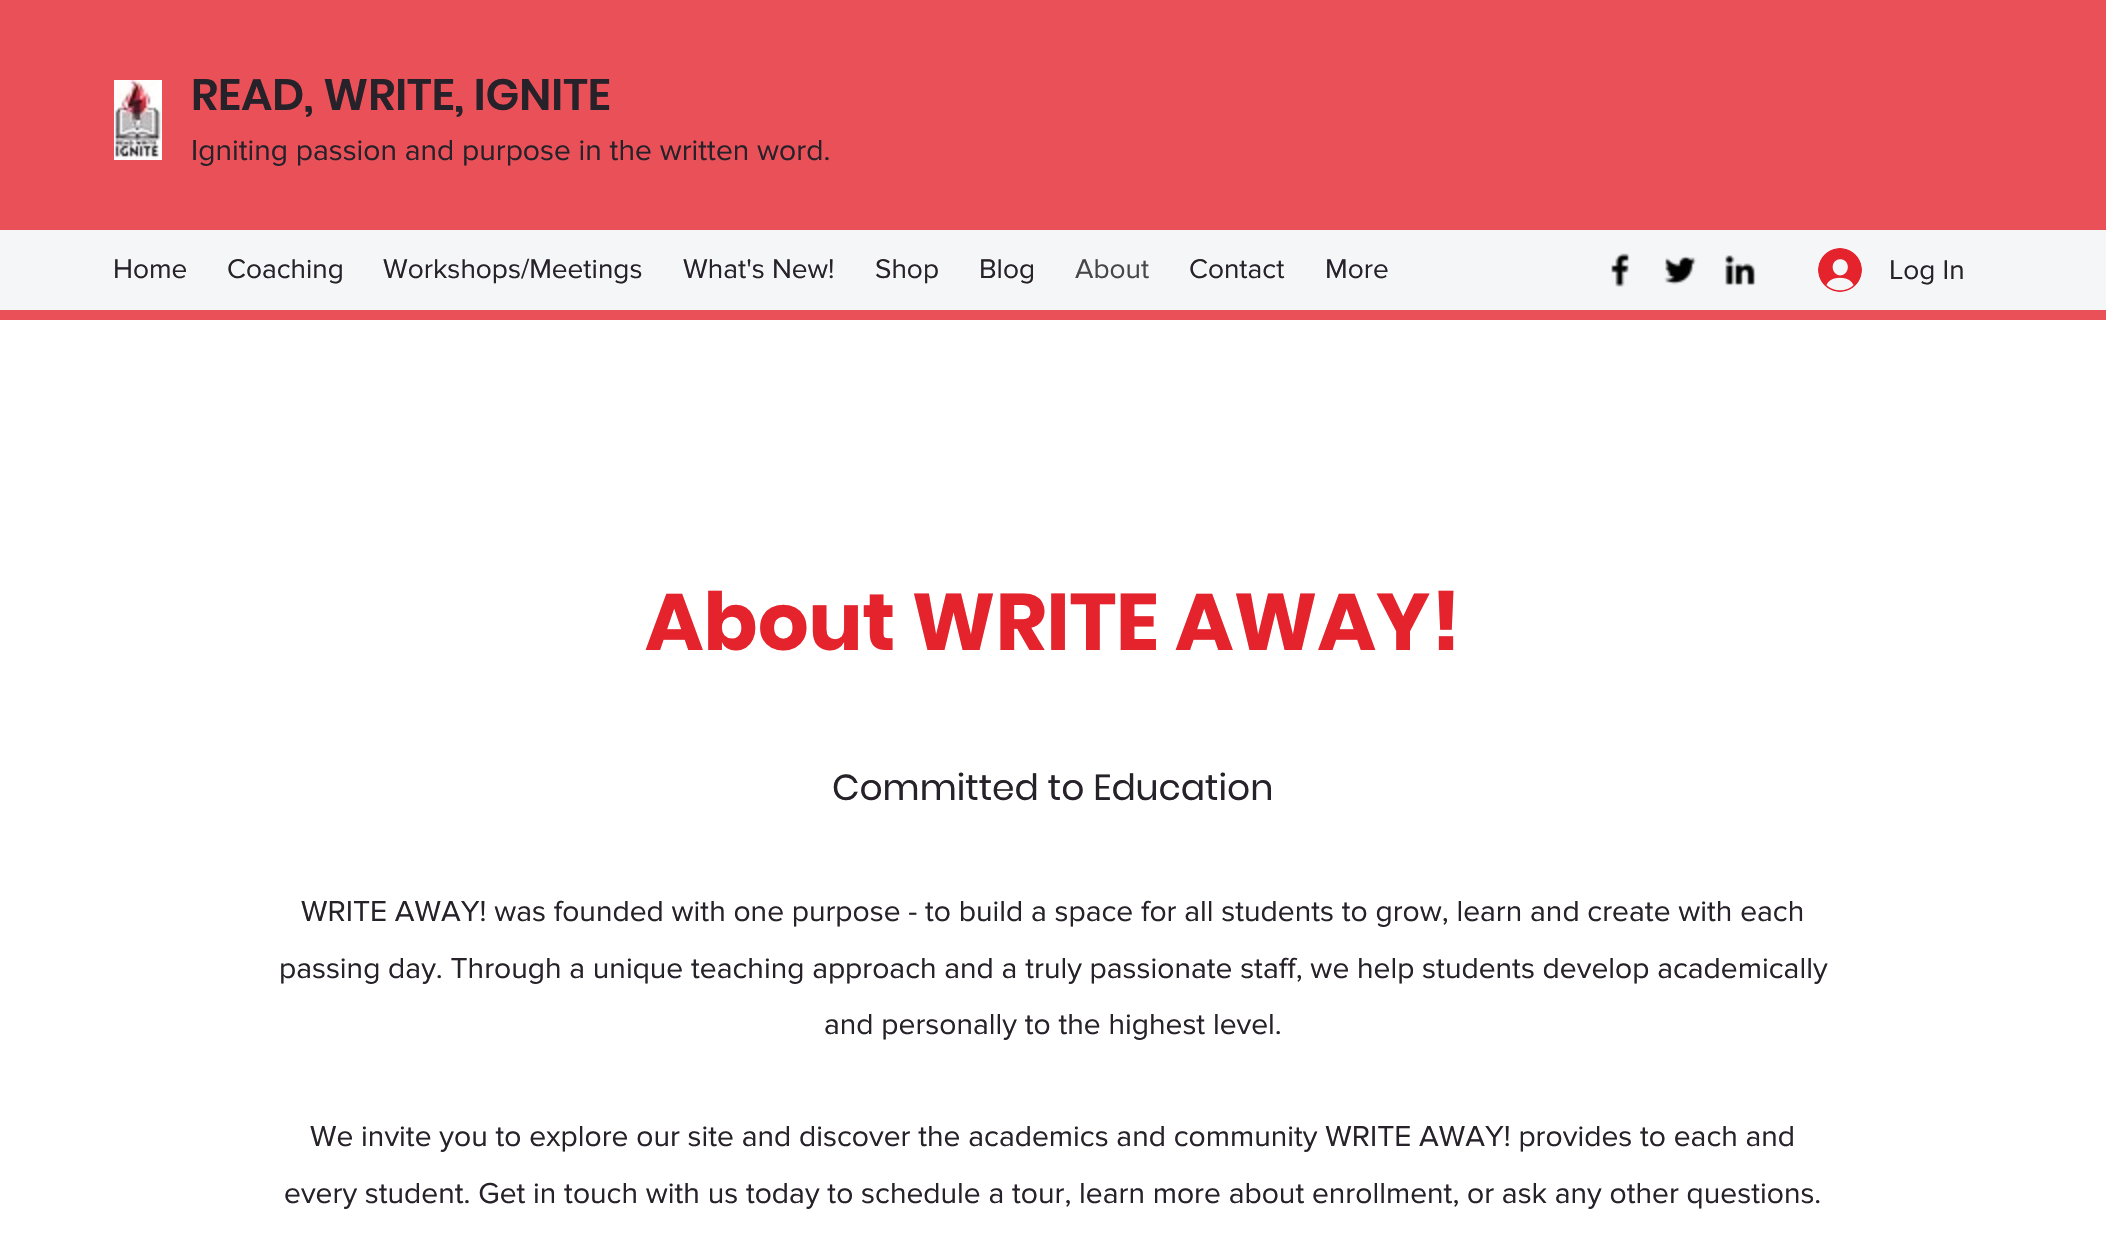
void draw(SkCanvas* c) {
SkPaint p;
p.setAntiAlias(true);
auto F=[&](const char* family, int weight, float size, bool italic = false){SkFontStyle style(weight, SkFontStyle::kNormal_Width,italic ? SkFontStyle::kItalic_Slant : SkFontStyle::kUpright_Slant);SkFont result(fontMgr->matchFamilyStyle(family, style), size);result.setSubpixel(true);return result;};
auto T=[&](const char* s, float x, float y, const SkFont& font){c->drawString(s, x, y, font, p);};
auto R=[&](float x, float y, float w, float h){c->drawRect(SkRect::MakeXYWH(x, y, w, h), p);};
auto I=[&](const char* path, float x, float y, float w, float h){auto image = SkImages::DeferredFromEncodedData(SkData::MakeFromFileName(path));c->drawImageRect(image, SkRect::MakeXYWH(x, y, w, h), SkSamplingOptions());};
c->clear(0xffffffff);
p.setColor(0xffea5058);
R(0,0,2106,320);
I("1.png",114,80,48,80);
auto f1 = F("Poppins",600,44);
p.setColor(0xff272129);
T("READ, WRITE, IGNITE",191,110,f1);
auto f2 = F("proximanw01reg",400,30);
T("Igniting passion and purpose in the written word.",191,160,f2);
p.setColor(0xfff4f6f7);
R(0,230,2106,80);
auto f3 = F("proximanw01reg",400,28);
p.setColor(0xff272129);
T("Home",113,278,f3);
T("Coaching",227,278,f3);
T("Workshops/Meetings",383,278,f3);
T("What's New!",683,278,f3);
T("Shop",875,278,f3);
T("Blog",979,278,f3);
p.setColor(0xff48464a);
T("About",1075,278,f3);
p.setColor(0xff272129);
T("Contact",1189,278,f3);
T("More",1325,278,f3);
I("2.png",1611,253,19,34);
I("3.png",1664,256,33,29);
I("4.png",1725,255,31,31);
I("5.png",1818,248,44,44);
T("Log In",1889,279,f3);
auto f4 = F("Poppins",700,80);
p.setColor(0xffe4232c);
T("About WRITE AWAY!",645,650,f4);
auto f5 = F("Poppins",400,36);
p.setColor(0xff272129);
T("Committed to Education",832,800,f5);
T("WRITE AWAY! was founded with one purpose - to build a space for all students to grow, learn and create with each",301,921,f2);
T("passing day. Through a unique teaching approach and a truly passionate staff, we help students develop academically",279,978,f2);
T("and personally to the highest level.",824,1034,f2);
T("We invite you to explore our site and discover the academics and community WRITE AWAY! provides to each and",310,1146,f2);
T("every student. Get in touch with us today to schedule a tour, learn more about enrollment, or ask any other questions.",284,1203,f2);
}
